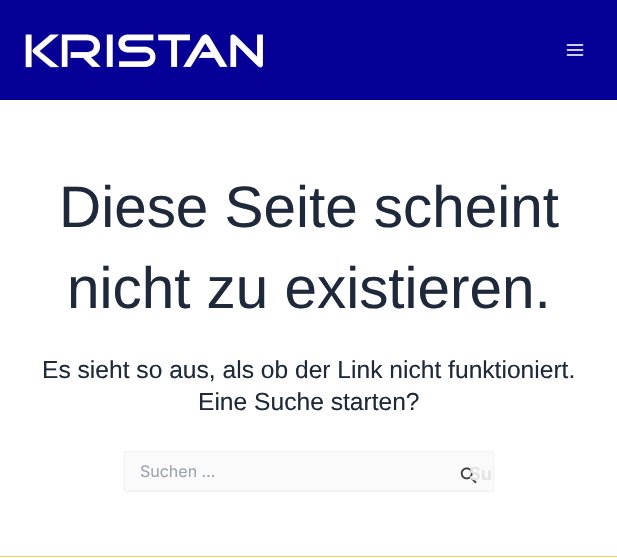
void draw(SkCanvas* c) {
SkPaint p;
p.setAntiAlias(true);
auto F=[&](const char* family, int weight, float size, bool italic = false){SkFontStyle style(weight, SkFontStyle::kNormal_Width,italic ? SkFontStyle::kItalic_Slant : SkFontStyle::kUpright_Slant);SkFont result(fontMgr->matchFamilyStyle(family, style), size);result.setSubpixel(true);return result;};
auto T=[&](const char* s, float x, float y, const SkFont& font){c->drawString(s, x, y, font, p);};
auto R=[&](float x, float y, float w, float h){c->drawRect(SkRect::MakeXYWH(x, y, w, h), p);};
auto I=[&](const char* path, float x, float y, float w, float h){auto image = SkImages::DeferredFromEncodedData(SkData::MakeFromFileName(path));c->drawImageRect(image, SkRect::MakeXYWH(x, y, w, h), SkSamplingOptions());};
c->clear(0xffffffff);
p.setColor(0xff060097);
R(0,0,617,100);
I("1.png",25,34,238,34);
I("2.png",566,44,18,12);
auto f1 = F("Liberation Sans",400,58.4);
p.setColor(0xff1e293b);
T("Diese Seite scheint",59,227,f1);
T("nicht zu existieren.",67,308,f1);
auto f2 = F("Liberation Sans",400,24.6);
T("Es sieht so aus, als ob der Link nicht funktioniert.",42,378,f2);
T("Eine Suche starten?",198,410,f2);
p.setColor(0x0d000000);
p.setMaskFilter(SkMaskFilter::MakeBlur(kNormal_SkBlurStyle, 1));
c->drawRoundRect(SkRect::MakeXYWH(124,452,370,40),2,2,p);
p.setMaskFilter(nullptr);
p.setColor(0xfffafafa);
c->drawRoundRect(SkRect::MakeXYWH(124.5,451.5,369,39),1.5,1.5,p);
p.setStroke(true);
p.setStrokeWidth(1);
p.setColor(0xfff2f5f7);
c->drawRoundRect(SkRect::MakeXYWH(124.5,451.5,369,39),1.5,1.5,p);
auto f3 = F("Inter",400,16);
p.setStroke(false);
p.setColor(0xff9ca3af);
T("Suchen …",140,477,f3);
I("3.png",460,467,17,17);
auto f4 = F("Inter",600,18);
p.setColor(0xffe3e3e3);
T("Su",469,480,f4);
p.setColor(0xffffcd57);
R(0,556,617,1);
}
